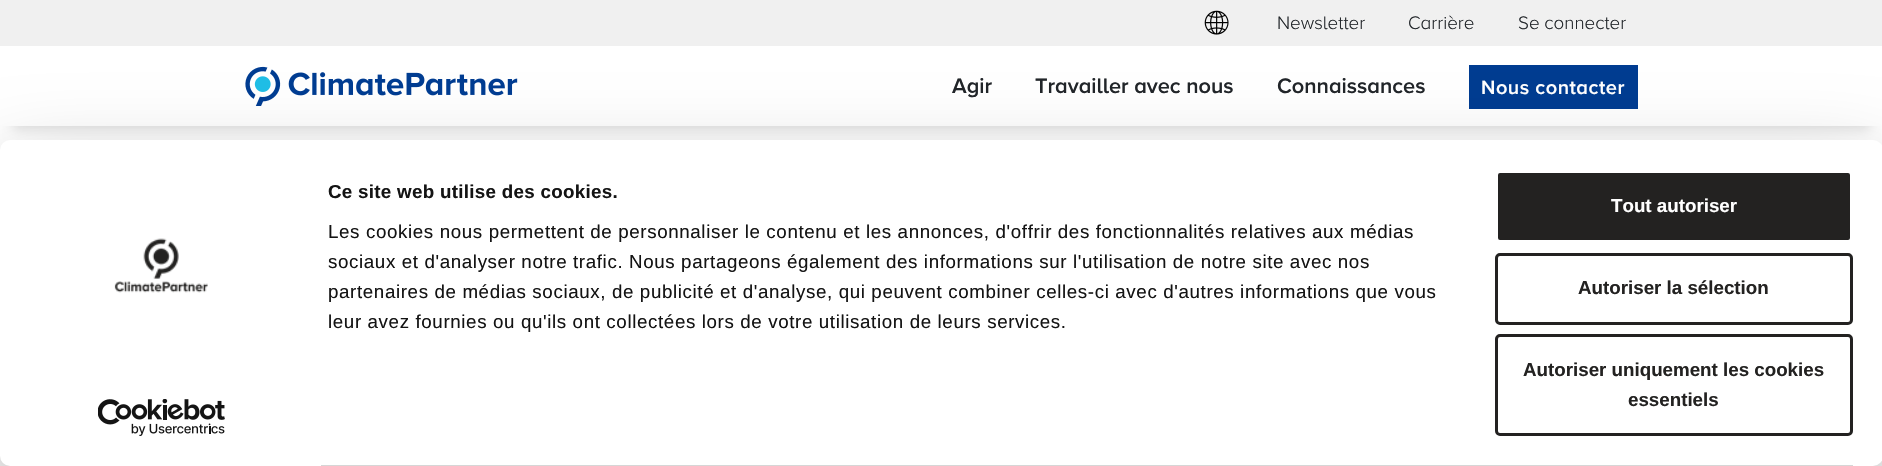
void draw(SkCanvas* c) {
SkPaint p;
p.setAntiAlias(true);
auto F=[&](const char* family, int weight, float size, bool italic = false){SkFontStyle style(weight, SkFontStyle::kNormal_Width,italic ? SkFontStyle::kItalic_Slant : SkFontStyle::kUpright_Slant);SkFont result(fontMgr->matchFamilyStyle(family, style), size);result.setSubpixel(true);return result;};
auto T=[&](const char* s, float x, float y, const SkFont& font){c->drawString(s, x, y, font, p);};
auto L=[&](const char* s, float x, float y, const SkFont& font, const SkPaint& ink, float letter, float word){std::vector<SkGlyphID> glyphs(font.countText(s, strlen(s), SkTextEncoding::kUTF8));std::vector<float> xs(glyphs.size());font.textToGlyphs(s, strlen(s), SkTextEncoding::kUTF8, glyphs);font.getXPos(glyphs, xs, x);float extra = 0;for (size_t i = 0; i < glyphs.size(); i++) {xs[i] += extra;extra += letter + word * (glyphs[i] == font.unicharToGlyph(' '));}c->drawTextBlob(SkTextBlob::MakeFromPosHGlyphs(glyphs, xs, y, font), 0, 0, ink);};
auto R=[&](float x, float y, float w, float h){c->drawRect(SkRect::MakeXYWH(x, y, w, h), p);};
auto Q=[&](float x, float y, float w, float h, float radius){c->drawRoundRect(SkRect::MakeXYWH(x, y, w, h), radius, radius, p);};
auto I=[&](const char* path, float x, float y, float w, float h){auto image = SkImages::DeferredFromEncodedData(SkData::MakeFromFileName(path));c->drawImageRect(image, SkRect::MakeXYWH(x, y, w, h), SkSamplingOptions());};
c->clear(0xffffffff);
c->save();
c->clipRect(SkRect::MakeXYWH(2,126,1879,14));
p.setColor(0xffdddddd);
p.setMaskFilter(SkMaskFilter::MakeBlur(kNormal_SkBlurStyle, 6));
c->drawRect(SkRect::MakeXYWH(13,28,1857,101),p);
p.setMaskFilter(nullptr);
c->restore();
p.setColor(0xfff0f0f0);
R(0,0,1882,46);
I("1.png",1204,10,25,25);
auto f1 = F("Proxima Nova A",300,18.75);
p.setColor(0xff212529);
T("Newsletter",1277,29,f1);
T("Carrière",1408,29,f1);
T("Se connecter",1518,29,f1);
I("2.png",245,66,273,40);
auto f2 = F("Proxima Nova A",600,21.75);
T("Agir",952,93,f2);
T("Travailler avec nous",1035,93,f2);
T("Connaissances",1277,93,f2);
p.setColor(0xff003c91);
R(1469,65,169,44);
auto f3 = F("Proxima Nova A",600,20);
p.setColor(0xffffffff);
L("Nous contacter",1481,94,f3,p,.5,0);
p.setColor(0x4d000000);
p.setMaskFilter(SkMaskFilter::MakeBlur(kNormal_SkBlurStyle, 44));
c->drawRoundRect(SkRect::MakeXYWH(0,178,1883,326),10,10,p);
p.setMaskFilter(nullptr);
p.setColor(0xffffffff);
Q(0,140,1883,326,10);
I("3.png",114,238,94,55);
I("4.png",98,399,127,37);
auto f4 = F("Liberation Sans",700,18.75);
p.setColor(0xff141414);
L("Ce site web utilise des cookies.",328,198,f4,p,.3,0);
auto f5 = F("Liberation Sans",400,18.75);
L("Les cookies nous permettent de personnaliser le contenu et les annonces, d'offrir des fonctionnalités relatives aux médias",328,238,f5,p,.62,0);
L("sociaux et d'analyser notre trafic. Nous partageons également des informations sur l'utilisation de notre site avec nos",328,268,f5,p,.62,0);
L("partenaires de médias sociaux, de publicité et d'analyse, qui peuvent combiner celles-ci avec d'autres informations que vous",328,298,f5,p,.62,0);
L("leur avez fournies ou qu'ils ont collectées lors de votre utilisation de leurs services.",328,328,f5,p,.62,0);
p.setColor(0xffd6d6d6);
R(321,465,1532,1);
p.setColor(0xff232221);
c->drawRoundRect(SkRect::MakeXYWH(1496.5,171.5,355,70),3.5,3.5,p);
p.setStroke(true);
p.setStrokeWidth(3);
p.setColor(0xffffffff);
c->drawRoundRect(SkRect::MakeXYWH(1496.5,171.5,355,70),3.5,3.5,p);
p.setStroke(false);
T("Tout autoriser",1611,212,f4);
p.setStroke(true);
p.setColor(0xff232221);
c->drawRoundRect(SkRect::MakeXYWH(1496.5,254.5,355,69),3.5,3.5,p);
p.setStroke(false);
T("Autoriser la sélection",1578,294,f4);
p.setStroke(true);
c->drawRoundRect(SkRect::MakeXYWH(1496.5,335.5,355,99),3.5,3.5,p);
p.setStroke(false);
T("Autoriser uniquement les cookies",1523,376,f4);
T("essentiels",1628,406,f4);
}
